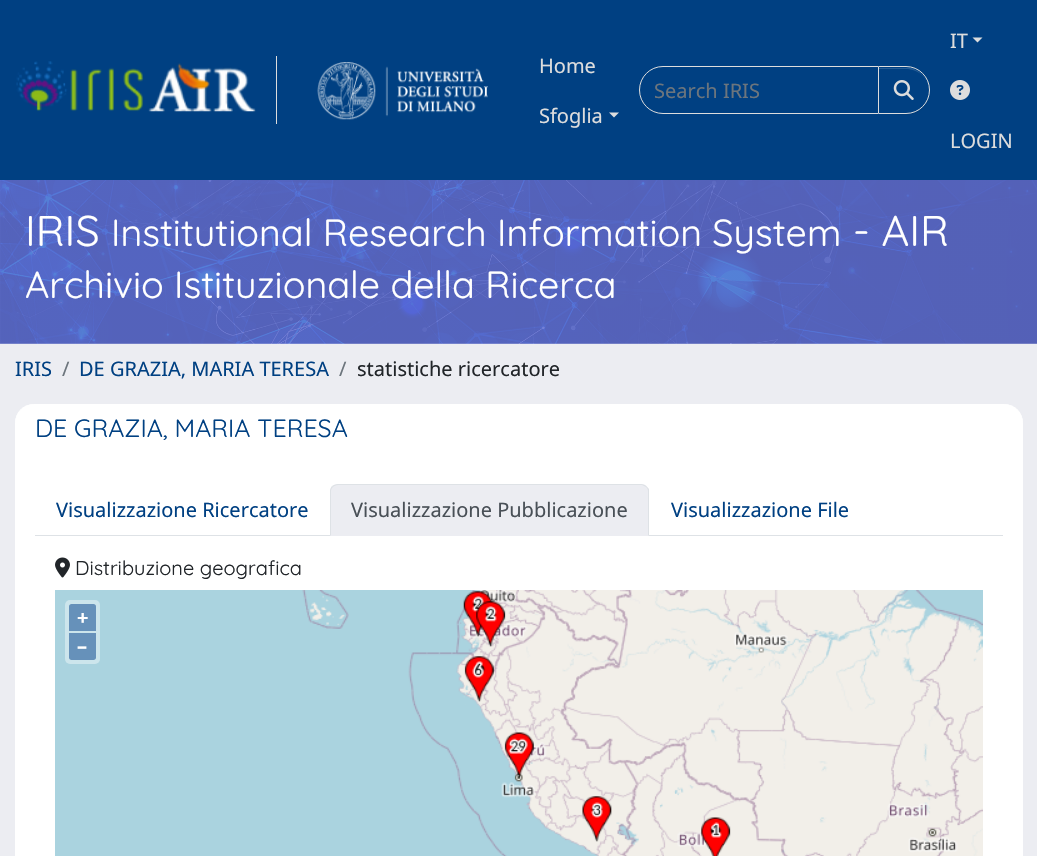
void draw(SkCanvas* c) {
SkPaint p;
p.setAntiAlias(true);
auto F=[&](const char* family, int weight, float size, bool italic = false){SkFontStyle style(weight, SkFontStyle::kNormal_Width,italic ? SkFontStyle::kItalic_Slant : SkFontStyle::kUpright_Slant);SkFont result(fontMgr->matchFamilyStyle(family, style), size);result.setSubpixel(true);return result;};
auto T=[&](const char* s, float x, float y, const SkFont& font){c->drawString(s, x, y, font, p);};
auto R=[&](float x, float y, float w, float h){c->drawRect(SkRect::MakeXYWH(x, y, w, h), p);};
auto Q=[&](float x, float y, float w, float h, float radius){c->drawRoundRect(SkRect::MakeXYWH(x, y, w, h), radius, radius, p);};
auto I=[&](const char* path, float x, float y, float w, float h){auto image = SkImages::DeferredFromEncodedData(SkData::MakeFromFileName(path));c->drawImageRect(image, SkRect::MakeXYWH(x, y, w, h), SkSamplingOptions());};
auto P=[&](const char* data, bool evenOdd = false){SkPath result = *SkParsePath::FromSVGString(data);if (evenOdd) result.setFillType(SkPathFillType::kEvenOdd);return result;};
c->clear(0xffecedf2);
p.setColor(0xff004082);
R(0,0,1037,180);
p.setColor(0xffdddddd);
R(276,56,1,68);
I("1.png",16,61,240,51);
I("2.png",317,62,171,58);
auto f1 = F("Noto Sans",400,20);
T("Home",539,73,f1);
T("Sfoglia",539,123,f1);
c->drawPath(P("M609 112.5h10l-5 5z"),p);
p.setStroke(true);
p.setStrokeWidth(1);
c->drawPath(P("M663 66.5h215.5v47h-215.5c-13 0-23.5-10.5-23.5-23.5c0-13 10.5-23.5 23.5-23.5z"),p);
p.setStroke(false);
p.setColor(0xff6c757d);
T("Search IRIS",654,98,f1);
p.setColor(0x12000000);
p.setMaskFilter(SkMaskFilter::MakeBlur(kNormal_SkBlurStyle, .5));
c->drawRoundRect(SkRect::MakeXYWH(878,68,52,47),23.5,23.5,p);
p.setMaskFilter(nullptr);
p.setColor(0xff004082);
c->drawPath(P("M878 66h28c13.5 0 24 10.5 24 24c0 13.5-10.5 24-24 24h-28z"),p);
p.setColor(0xff265d95);
c->drawPath(P("M879 69h27c13 0 23 10 23 22c0-11-8-20-18-23h-32z"),p);
p.setStroke(true);
p.setColor(0xffdddddd);
c->drawPath(P("M878.5 66.5h27.5c13 0 23.5 10.5 23.5 23.5c0 13-10.5 23.5-23.5 23.5h-27.5z"),p);
I("3.png",893,80,21,20);
p.setStroke(false);
T("IT",950,48,f1);
c->drawPath(P("M972.5 37.5h10l-5 5z"),p);
I("4.png",950,80,20,20);
T("LOGIN",950,148,f1);
I("5.png",0,180,1037,164);
auto f2 = F("Quicksand",400,43);
p.setColor(0xffffffff);
T("IRIS",25,246,f2);
auto f3 = F("Quicksand",400,37.7);
T("Institutional Research Information System",111,246,f3);
T("- AIR",853,246,f2);
T("Archivio Istituzionale della Ricerca",25,298,f3);
p.setColor(0xff004082);
T("IRIS",15,376,f1);
p.setColor(0xff6c757d);
T("/",62,376,f1);
p.setColor(0xff004082);
T("DE GRAZIA, MARIA TERESA",79,376,f1);
p.setColor(0xff6c757d);
T("/",339,376,f1);
p.setColor(0xff212529);
T("statistiche ricercatore",357,376,f1);
p.setColor(0xffffffff);
Q(15,404,1008,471,19);
c->drawPath(P("M34 404h970c10.5 0 19 8.5 19 19v41h-1008v-41c0-10.5 8.5-19 19-19z"),p);
auto f4 = F("Quicksand",400,25);
p.setColor(0xff004082);
T("DE GRAZIA, MARIA TERESA",35,437,f4);
p.setColor(0xffdee2e6);
R(35,535,968,1);
p.setColor(0xff004082);
T("Visualizzazione Ricercatore",56,517,f1);
p.setColor(0xffecedf2);
c->drawPath(P("M338 484h303c4.5 0 8 3.5 8 8v44h-319v-44c0-4.5 3.5-8 8-8z"),p);
p.setColor(0xffdee2e6);
c->drawPath(P("M338 484c-2 0-4 1-6 2l1 1c1-1 3-2 5-2h304l4 2v-1c-1-1-3-2-5-2z"),p);
c->drawPath(P("M646 486l3 3v47l-1-1v-44c0-2-1-3-2-4z"),p);
c->drawPath(P("M330 491v45l1-1v-44c0-2 1-3 2-4l-1-1c-1 1-2 3-2 5z"),p);
p.setColor(0xff495057);
T("Visualizzazione Pubblicazione",351,517,f1);
p.setColor(0xff004082);
T("Visualizzazione File",671,517,f1);
I("6.png",55,557,15,21);
auto f5 = F("Quicksand",400,20);
p.setColor(0xff212529);
T("Distribuzione geografica",75,575,f5);
I("7.png",55,590,928,266);
p.setColor(0xffcce5ec);
Q(65,600,35,64,5);
p.setColor(0xff6691ba);
c->drawPath(P("M71.5 604h22c1.5 0 2.5 1 2.5 2.5v24.5h-27v-24.5c0-1.5 1-2.5 2.5-2.5z"),p);
auto f6 = F("Noto Sans",700,20);
p.setColor(0xffffffff);
T("+",77,625,f6);
p.setColor(0xff6691ba);
c->drawPath(P("M69 633h27v24.5c0 1.5-1 2.5-2.5 2.5h-22c-1.5 0-2.5-1-2.5-2.5z"),p);
p.setColor(0xffffffff);
T("–",77,653,f6);
}
